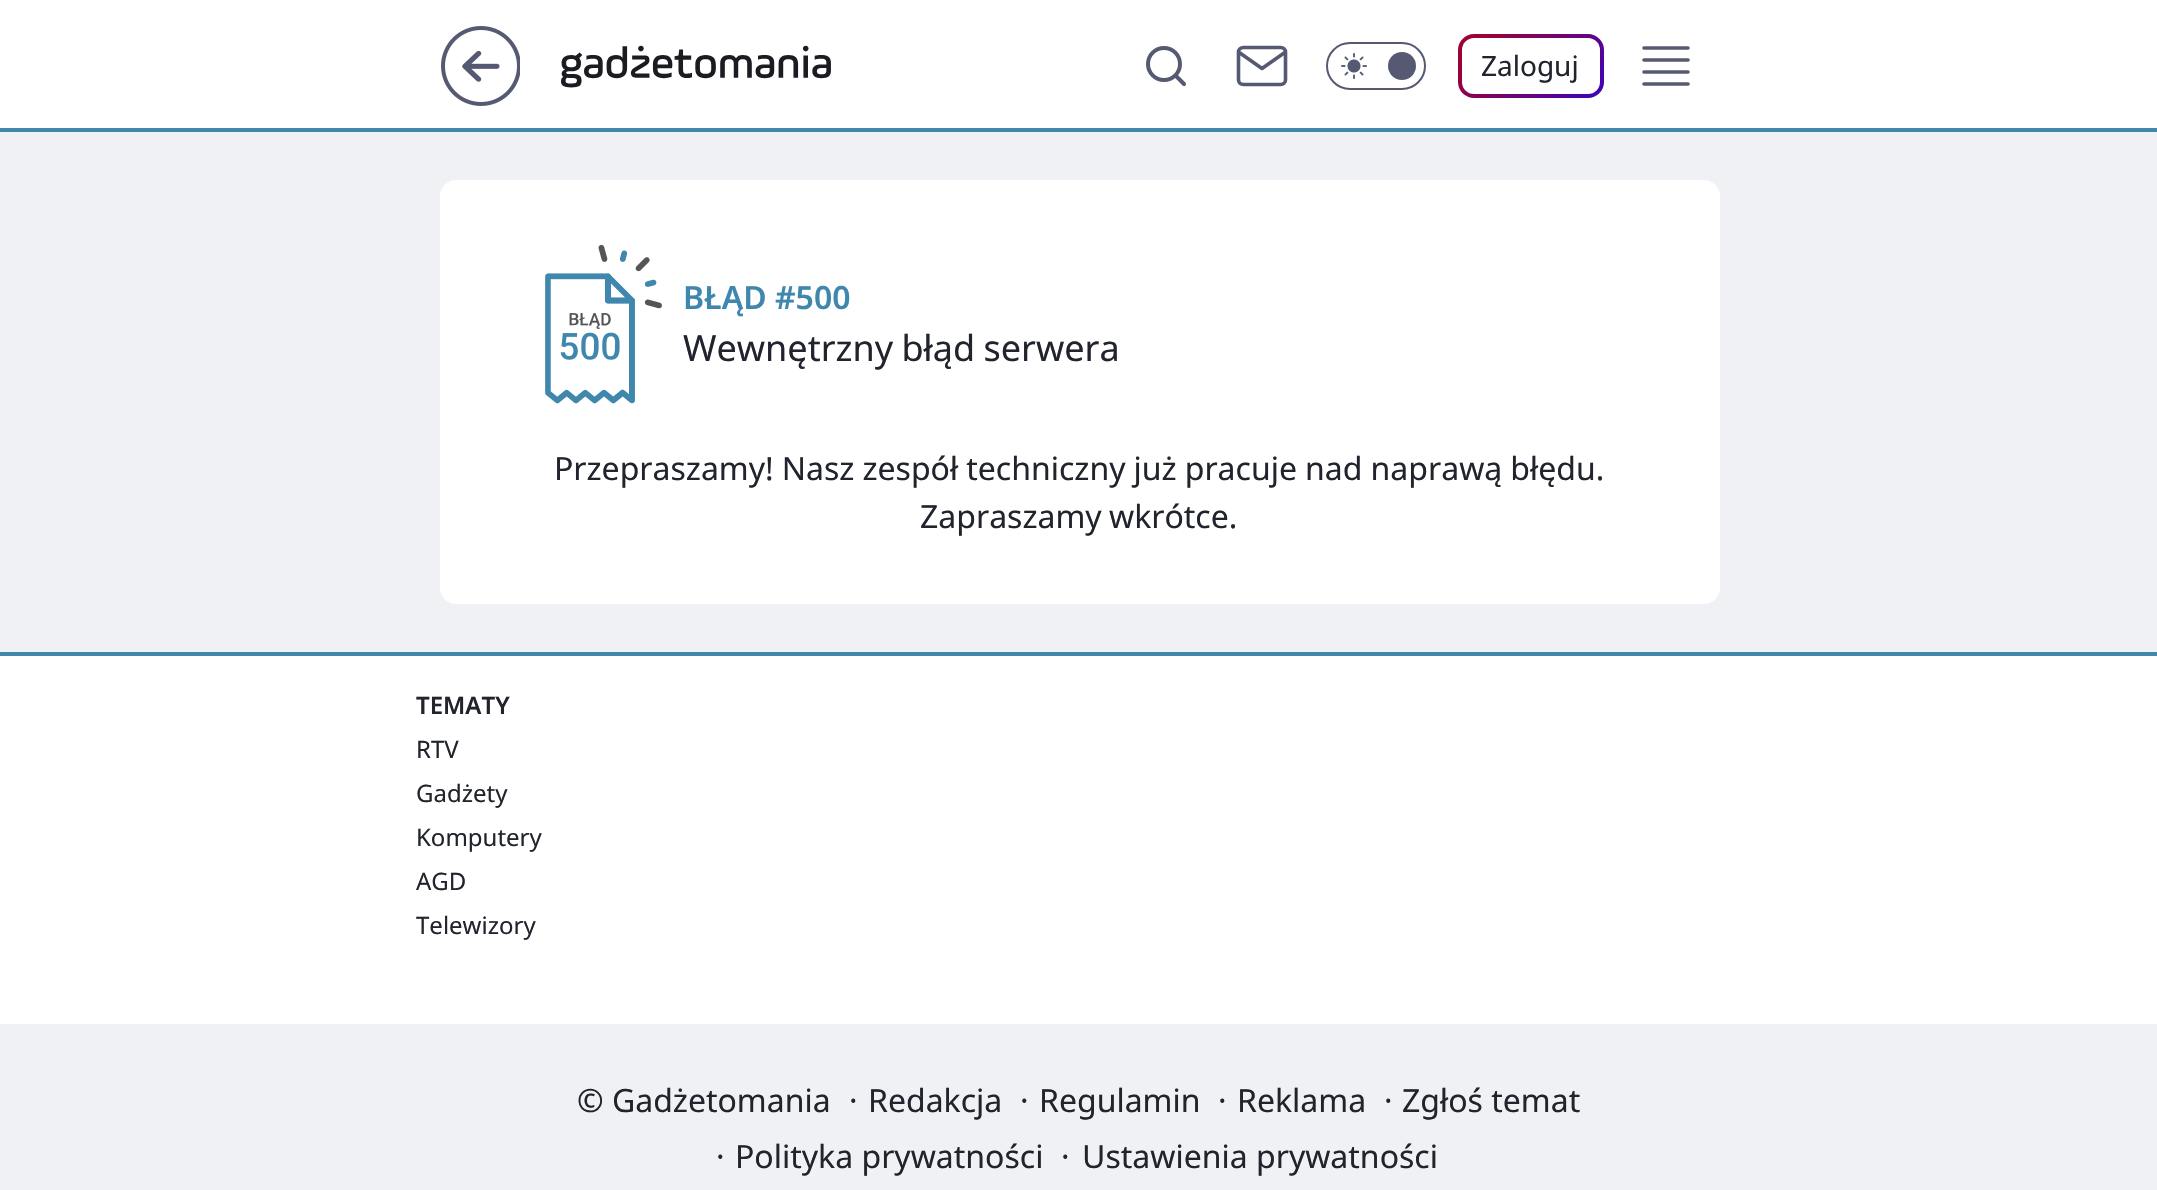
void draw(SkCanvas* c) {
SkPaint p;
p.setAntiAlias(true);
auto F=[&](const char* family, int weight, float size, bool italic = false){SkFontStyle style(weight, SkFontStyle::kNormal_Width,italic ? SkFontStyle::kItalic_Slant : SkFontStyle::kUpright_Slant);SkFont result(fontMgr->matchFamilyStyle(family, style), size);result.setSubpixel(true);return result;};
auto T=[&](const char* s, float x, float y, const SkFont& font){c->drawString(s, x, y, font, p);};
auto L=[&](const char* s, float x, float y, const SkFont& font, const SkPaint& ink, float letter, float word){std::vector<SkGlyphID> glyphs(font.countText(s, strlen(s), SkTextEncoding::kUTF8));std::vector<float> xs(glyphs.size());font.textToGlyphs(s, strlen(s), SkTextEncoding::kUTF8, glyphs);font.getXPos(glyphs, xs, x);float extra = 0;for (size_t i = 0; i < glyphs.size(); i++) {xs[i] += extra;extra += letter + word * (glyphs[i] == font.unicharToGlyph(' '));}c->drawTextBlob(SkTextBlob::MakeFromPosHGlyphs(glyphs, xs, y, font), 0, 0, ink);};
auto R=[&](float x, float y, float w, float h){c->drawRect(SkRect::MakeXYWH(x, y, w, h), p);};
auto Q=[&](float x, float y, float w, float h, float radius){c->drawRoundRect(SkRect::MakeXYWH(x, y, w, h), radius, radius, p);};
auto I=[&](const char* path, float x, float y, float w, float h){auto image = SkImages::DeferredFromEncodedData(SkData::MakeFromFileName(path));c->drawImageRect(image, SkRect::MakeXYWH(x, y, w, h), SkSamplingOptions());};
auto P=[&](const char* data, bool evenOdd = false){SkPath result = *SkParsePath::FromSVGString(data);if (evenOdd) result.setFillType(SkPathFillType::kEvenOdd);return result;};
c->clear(0xffeff1f5);
p.setColor(0xffffffff);
R(0,0,2157,128);
I("1.png",441,26,79,80);
I("2.png",561,45,270,43);
p.setStroke(true);
p.setStrokeWidth(4);
p.setColor(0xff555a72);
c->drawCircle(1164,64,16,p);
p.setStrokeCap(SkPaint::kRound_Cap);
p.setStrokeJoin(SkPaint::kRound_Join);
c->drawPath(P("M1184 84l-8.5-8.5"),p);
p.setStrokeWidth(3.6);
c->drawPath(P("M1243.5 47.5h37c3 0 5 2 5 4.5v28c0 2.5-2 4.5-5 4.5h-37c-3 0-5-2-5-4.5v-28c0-2.5 2-4.5 5-4.5m42 4.5l-23.5 16.5l-23.5-16.5"),p);
p.setStrokeWidth(2);
p.setStrokeCap(SkPaint::kButt_Cap);
p.setStrokeJoin(SkPaint::kMiter_Join);
c->drawRoundRect(SkRect::MakeXYWH(1327,43,98,46),23,23,p);
I("3.png",1341,53,26,26);
p.setStroke(false);
c->drawCircle(1402,66,14,p);
{
const SkColor colors[] = {0xff9b0238,0xff4404ae};
const float stops[] = {.15,.91};
const SkPoint ends[] = {{1475,15}, {1587,117}};
p.setShader(SkGradientShader::MakeLinear(ends, colors, stops, 2, SkTileMode::kClamp));
p.setAlpha(255);
}
Q(1458,34,146,64,16);
p.setShader(nullptr);
p.setColor(0xffffffff);
Q(1462,38,138,56,12);
auto f1 = F("Noto Sans",400,28);
p.setColor(0xff22242d);
T("Zaloguj",1481,76,f1);
p.setStroke(true);
p.setStrokeWidth(3.6);
p.setStrokeCap(SkPaint::kRound_Cap);
p.setStrokeJoin(SkPaint::kRound_Join);
p.setColor(0xff555a72);
c->drawPath(P("M1644 72h44m-44-12h44m-44-12h44m-44 36h44"),p);
p.setStroke(false);
p.setColor(0xff4087ad);
R(0,128,2157,4);
p.setColor(0xffffffff);
Q(440,180,1280,424,16);
I("4.png",545,244,117,160);
auto f2 = F("Noto Sans",600,32);
p.setColor(0xff4087ad);
T("BŁĄD #500",683,309,f2);
auto f3 = F("Noto Sans",400,36);
p.setColor(0xff22242d);
L("Wewnętrzny błąd serwera",683,361,f3,p,0,-1);
auto f4 = F("Noto Sans",400,32);
L("Przepraszamy! Nasz zespół techniczny już pracuje nad naprawą błędu.",554,480,f4,p,0,-.25);
L("Zapraszamy wkrótce.",920,528,f4,p,0,-1);
p.setColor(0xffffffff);
R(0,656,2157,368);
p.setColor(0xff4087ad);
R(0,652,2157,4);
auto f5 = F("Noto Sans",600,24);
p.setColor(0xff22242d);
T("TEMATY",416,714,f5);
auto f6 = F("Noto Sans",400,24);
T("RTV",416,758,f6);
T("Gadżety",416,802,f6);
T("Komputery",416,846,f6);
T("AGD",416,890,f6);
T("Telewizory",416,934,f6);
T("© Gadżetomania",577,1112,f4);
T("·",849,1112,f4);
T("Redakcja",868,1112,f4);
T("·",1020,1112,f4);
T("Regulamin",1039,1112,f4);
T("·",1218,1112,f4);
T("Reklama",1237,1112,f4);
T("·",1384,1112,f4);
T("Zgłoś temat",1402,1112,f4);
T("·",716,1168,f4);
T("Polityka prywatności",735,1168,f4);
T("·",1061,1168,f4);
T("Ustawienia prywatności",1082,1168,f4);
}
